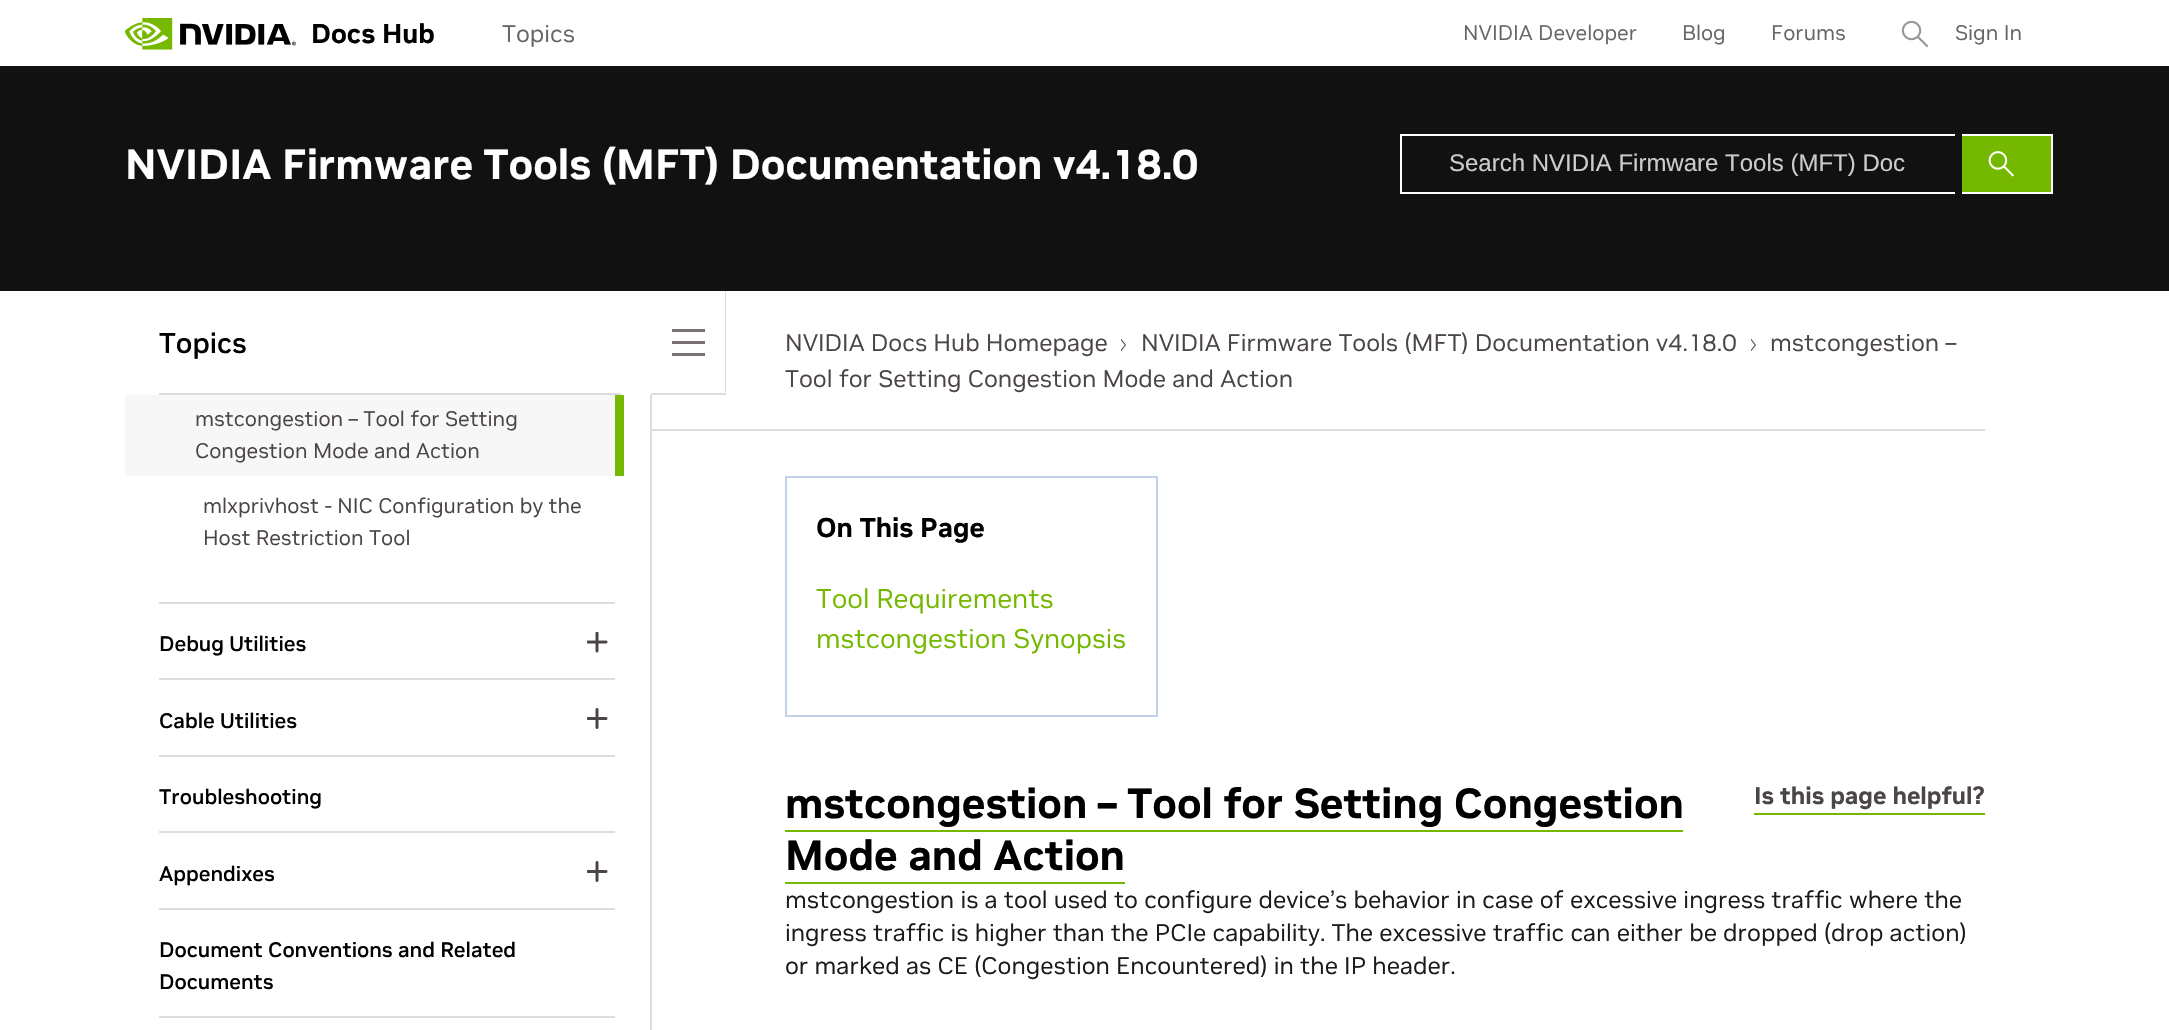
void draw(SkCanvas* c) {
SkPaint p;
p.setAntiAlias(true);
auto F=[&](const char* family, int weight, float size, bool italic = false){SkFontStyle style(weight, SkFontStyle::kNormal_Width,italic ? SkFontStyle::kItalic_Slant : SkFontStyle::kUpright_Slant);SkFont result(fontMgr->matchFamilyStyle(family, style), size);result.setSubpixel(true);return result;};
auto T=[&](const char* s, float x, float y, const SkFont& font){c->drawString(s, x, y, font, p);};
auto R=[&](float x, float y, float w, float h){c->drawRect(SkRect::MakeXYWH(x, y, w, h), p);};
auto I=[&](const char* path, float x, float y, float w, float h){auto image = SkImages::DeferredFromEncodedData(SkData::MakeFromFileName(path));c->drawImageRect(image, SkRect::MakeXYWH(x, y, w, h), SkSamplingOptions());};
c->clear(0xffffffff);
I("1.png",125,18,171,32);
auto f1 = F("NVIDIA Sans",700,27);
p.setColor(0xff000000);
T("Docs Hub",311,43,f1);
auto f2 = F("NVIDIA Sans",400,24);
p.setColor(0xff666666);
T("Topics",502,42,f2);
auto f3 = F("NVIDIA Sans",400,21);
T("NVIDIA Developer",1463,40,f3);
T("Blog",1682,40,f3);
T("Forums",1771,40,f3);
I("2.png",1901,20,28,28);
T("Sign In",1955,40,f3);
p.setColor(0xff111111);
R(0,66,2169,225);
auto f4 = F("NVIDIA Sans",700,42);
p.setColor(0xffffffff);
T("NVIDIA Firmware Tools (MFT) Documentation v4.18.0",125,179,f4);
R(1400,134,555,2);
R(1400,192,555,2);
R(1400,134,2,60);
auto f5 = F("Liberation Sans",400,24);
p.setColor(0xffcccccc);
T("Search NVIDIA Firmware Tools (MFT) Doc",1449,171,f5);
p.setColor(0xff74b900);
R(1962,136,89,56);
p.setColor(0xffffffff);
R(1962,134,90,2);
R(2051,134,2,60);
R(1962,192,90,2);
I("3.png",1988,151,26,26);
auto f6 = F("NVIDIA Sans",500,28.5);
p.setColor(0xff000000);
T("Topics",159,353,f6);
p.setColor(0xffdddddd);
R(159,393,462,2);
R(725,291,1,104);
R(651,393,75,2);
p.setColor(0xff787171);
R(672,329,33,3);
R(672,341,33,3);
R(672,353,33,3);
p.setColor(0xffdddddd);
R(650,395,2,635);
p.setColor(0xfff7f7f7);
R(125,395,490,81);
p.setColor(0xff4b4545);
T("mstcongestion – Tool for Setting",195,426,f3);
T("Congestion Mode and Action",195,458,f3);
p.setColor(0xff74b900);
R(615,395,9,81);
p.setColor(0xff4b4545);
T("mlxprivhost - NIC Configuration by the",203,513,f3);
T("Host Restriction Tool",203,545,f3);
p.setColor(0xffdddddd);
R(159,602,456,2);
auto f7 = F("NVIDIA Sans",500,21);
p.setColor(0xff000000);
T("Debug Utilities",159,651,f7);
I("4.png",587,632,21,21);
p.setColor(0xffdddddd);
R(159,678,456,2);
p.setColor(0xff000000);
T("Cable Utilities",159,728,f7);
I("5.png",587,708,21,21);
p.setColor(0xffdddddd);
R(159,755,456,2);
p.setColor(0xff000000);
T("Troubleshooting",159,804,f7);
p.setColor(0xffdddddd);
R(159,831,456,2);
p.setColor(0xff000000);
T("Appendixes",159,881,f7);
I("5.png",587,861,21,21);
p.setColor(0xffdddddd);
R(159,908,456,2);
p.setColor(0xff000000);
T("Document Conventions and Related",159,957,f7);
T("Documents",159,989,f7);
p.setColor(0xffdddddd);
R(159,1016,456,2);
p.setColor(0xff4b4545);
T("NVIDIA Docs Hub Homepage",785,351,f2);
I("6.png",1121,339,5,12);
T("NVIDIA Firmware Tools (MFT) Documentation v4.18.0",1141,351,f2);
I("6.png",1751,339,5,12);
T("mstcongestion –",1770,351,f2);
T("Tool for Setting Congestion Mode and Action",785,387,f2);
p.setColor(0xffdddddd);
R(652,429,1333,2);
p.setStroke(true);
p.setStrokeWidth(2);
p.setColor(0xffc2d1e8);
c->drawRect(SkRect::MakeXYWH(786,477,371,239),p);
p.setStroke(false);
p.setColor(0xff000000);
T("On This Page",816,537,f1);
auto f8 = F("NVIDIA Sans",400,27);
p.setColor(0xff74b900);
T("Tool Requirements",816,608,f8);
T("mstcongestion Synopsis",816,648,f8);
p.setColor(0xff000000);
T("mstcongestion – Tool for Setting Congestion",785,818,f4);
p.setColor(0xff74b900);
R(785,830,898,2);
p.setColor(0xff000000);
T("Mode and Action",785,870,f4);
p.setColor(0xff74b900);
R(785,882,340,2);
R(1754,813,231,2);
auto f9 = F("NVIDIA Sans",700,24);
p.setColor(0xff4b4545);
T("Is this page helpful?",1754,804,f9);
p.setColor(0xff1a1a1a);
T("mstcongestion is a tool used to configure device’s behavior in case of excessive ingress traffic where the",785,908,f2);
T("ingress traffic is higher than the PCIe capability. The excessive traffic can either be dropped (drop action)",785,941,f2);
T("or marked as CE (Congestion Encountered) in the IP header.",785,974,f2);
}
